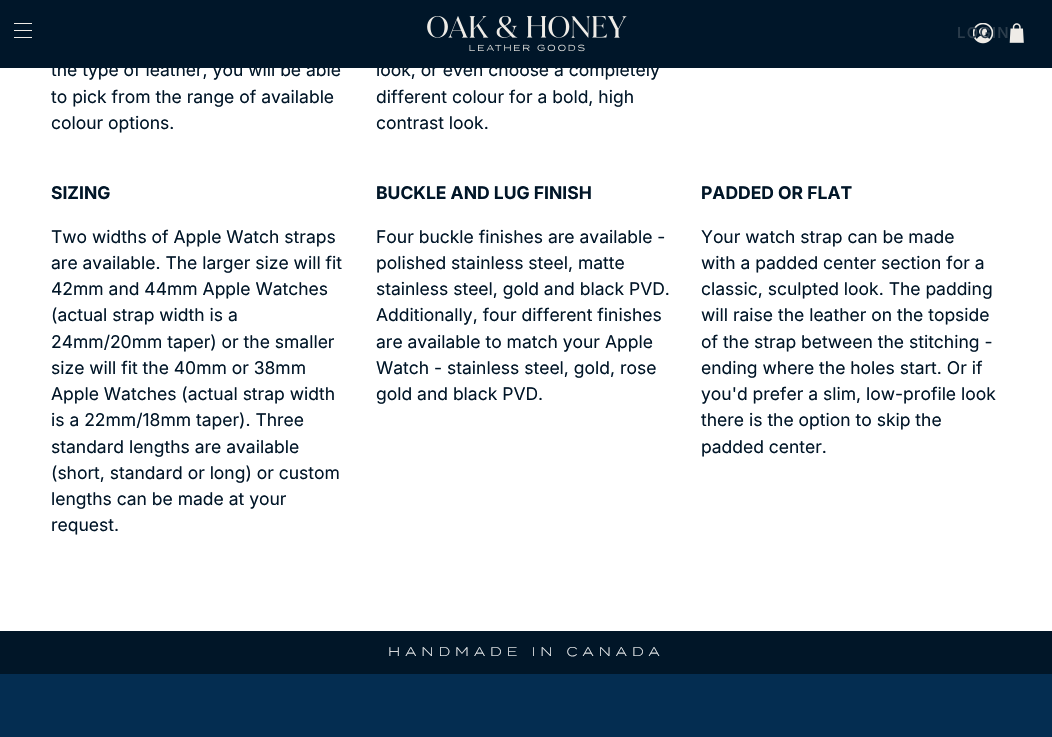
void draw(SkCanvas* c) {
SkPaint p;
p.setAntiAlias(true);
auto F=[&](const char* family, int weight, float size, bool italic = false){SkFontStyle style(weight, SkFontStyle::kNormal_Width,italic ? SkFontStyle::kItalic_Slant : SkFontStyle::kUpright_Slant);SkFont result(fontMgr->matchFamilyStyle(family, style), size);result.setSubpixel(true);return result;};
auto T=[&](const char* s, float x, float y, const SkFont& font){c->drawString(s, x, y, font, p);};
auto L=[&](const char* s, float x, float y, const SkFont& font, const SkPaint& ink, float letter, float word){std::vector<SkGlyphID> glyphs(font.countText(s, strlen(s), SkTextEncoding::kUTF8));std::vector<float> xs(glyphs.size());font.textToGlyphs(s, strlen(s), SkTextEncoding::kUTF8, glyphs);font.getXPos(glyphs, xs, x);float extra = 0;for (size_t i = 0; i < glyphs.size(); i++) {xs[i] += extra;extra += letter + word * (glyphs[i] == font.unicharToGlyph(' '));}c->drawTextBlob(SkTextBlob::MakeFromPosHGlyphs(glyphs, xs, y, font), 0, 0, ink);};
auto R=[&](float x, float y, float w, float h){c->drawRect(SkRect::MakeXYWH(x, y, w, h), p);};
auto I=[&](const char* path, float x, float y, float w, float h){auto image = SkImages::DeferredFromEncodedData(SkData::MakeFromFileName(path));c->drawImageRect(image, SkRect::MakeXYWH(x, y, w, h), SkSamplingOptions());};
c->clear(0xffffffff);
auto f1 = F("Inter",400,17.5);
p.setColor(0xff011628);
T("the type of leather, you will be able",51,76,f1);
T("look, or even choose a completely",376,76,f1);
p.setColor(0xff001629);
R(0,0,1052,68);
p.setColor(0xffefece7);
R(14,23,18,1);
R(14,30,18,1);
R(14,37,18,1);
I("1.png",427,16,200,36);
I("2.png",973,23,21,21);
auto f2 = F("Inter",500,15);
p.setColor(0xff2c3d4c);
L("LOGIN",957,38,f2,p,1.25,0);
I("3.png",1009,23,15,20);
p.setColor(0xff011628);
T("to pick from the range of available",51,103,f1);
T("colour options.",51,129,f1);
T("different colour for a bold, high",376,103,f1);
T("contrast look.",376,129,f1);
auto f3 = F("Inter",700,17.5);
T("SIZING",51,199,f3);
T("Two widths of Apple Watch straps",51,243,f1);
T("are available. The larger size will fit",51,269,f1);
T("42mm and 44mm Apple Watches",51,295,f1);
T("(actual strap width is a",51,321,f1);
T("24mm/20mm taper) or the smaller",51,348,f1);
T("size will fit the 40mm or 38mm",51,374,f1);
T("Apple Watches (actual strap width",51,400,f1);
T("is a 22mm/18mm taper). Three",51,426,f1);
T("standard lengths are available",51,453,f1);
T("(short, standard or long) or custom",51,479,f1);
T("lengths can be made at your",51,505,f1);
T("request.",51,531,f1);
T("BUCKLE AND LUG FINISH",376,199,f3);
T("Four buckle finishes are available -",376,243,f1);
T("polished stainless steel, matte",376,269,f1);
T("stainless steel, gold and black PVD.",376,295,f1);
T("Additionally, four different finishes",376,321,f1);
T("are available to match your Apple",376,348,f1);
T("Watch - stainless steel, gold, rose",376,374,f1);
T("gold and black PVD.",376,400,f1);
T("PADDED OR FLAT",701,199,f3);
T("Your watch strap can be made",701,243,f1);
T("with a padded center section for a",701,269,f1);
T("classic, sculpted look. The padding",701,295,f1);
T("will raise the leather on the topside",701,321,f1);
T("of the strap between the stitching -",701,348,f1);
T("ending where the holes start. Or if",701,374,f1);
T("you'd prefer a slim, low-profile look",701,400,f1);
T("there is the option to skip the",701,426,f1);
T("padded center.",701,453,f1);
R(0,631,1052,43);
auto f4 = F("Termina",300,12.5);
p.setColor(0xffffffff);
L("HANDMADE IN CANADA",388,656,f4,p,5,0);
p.setColor(0xff042d51);
R(0,674,1052,63);
}
